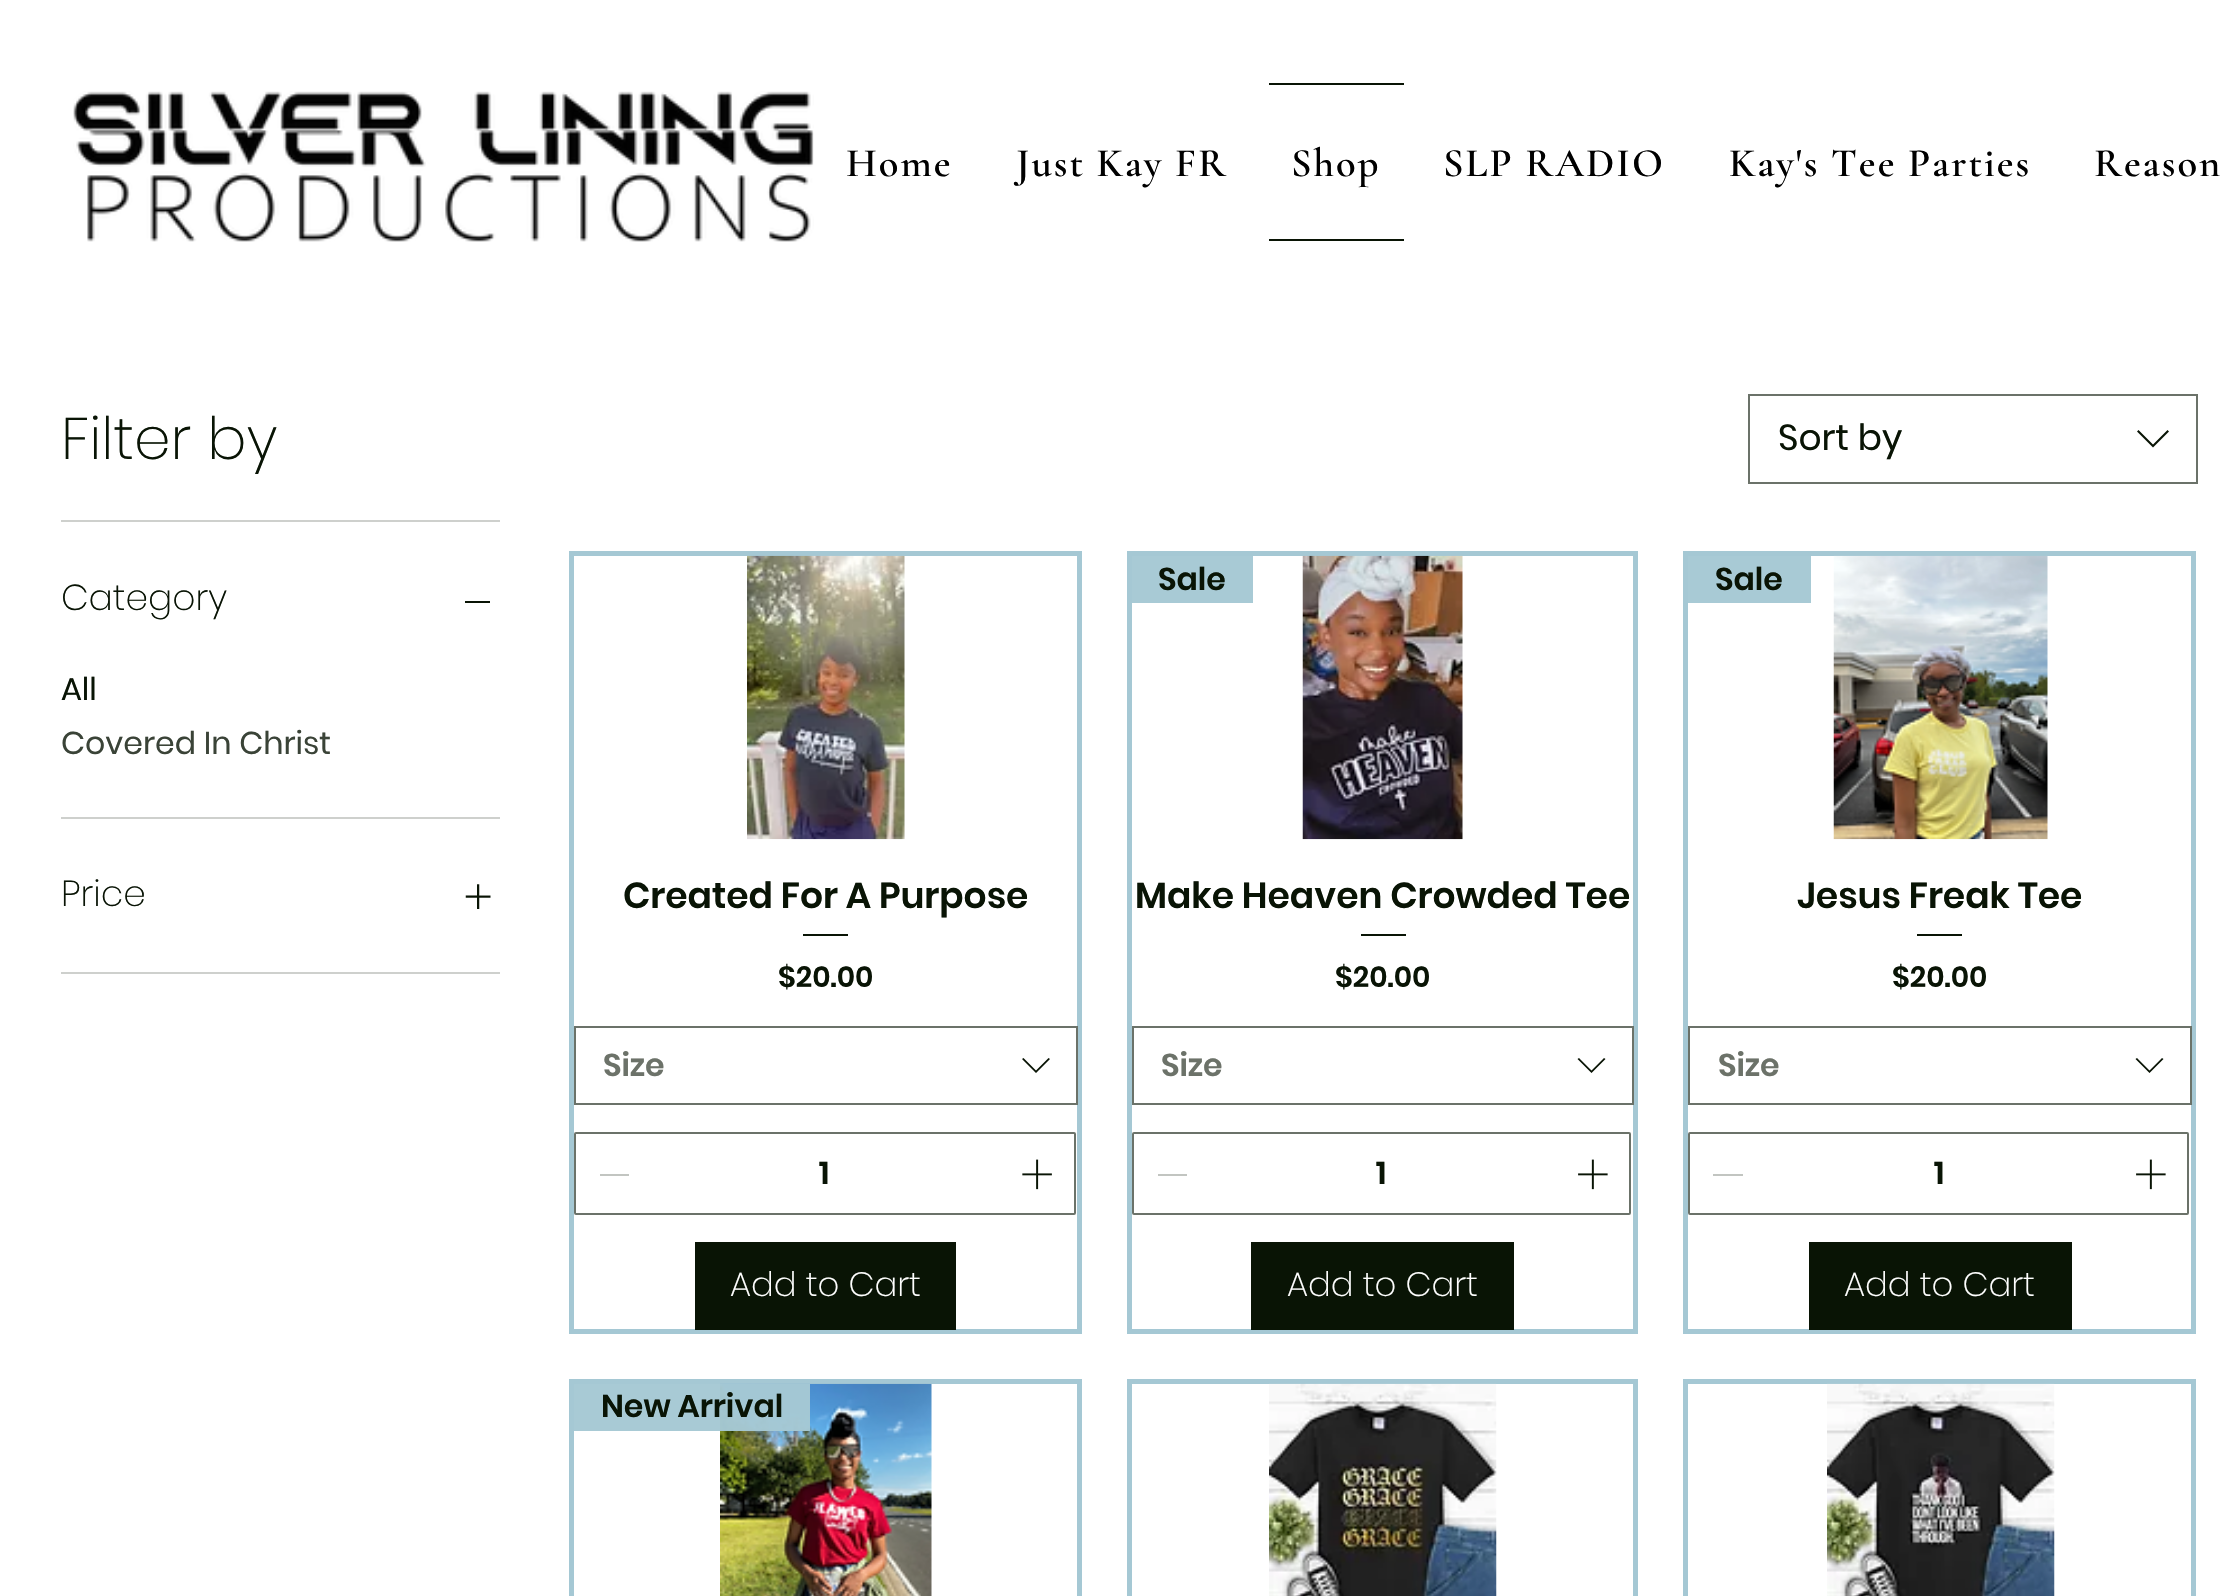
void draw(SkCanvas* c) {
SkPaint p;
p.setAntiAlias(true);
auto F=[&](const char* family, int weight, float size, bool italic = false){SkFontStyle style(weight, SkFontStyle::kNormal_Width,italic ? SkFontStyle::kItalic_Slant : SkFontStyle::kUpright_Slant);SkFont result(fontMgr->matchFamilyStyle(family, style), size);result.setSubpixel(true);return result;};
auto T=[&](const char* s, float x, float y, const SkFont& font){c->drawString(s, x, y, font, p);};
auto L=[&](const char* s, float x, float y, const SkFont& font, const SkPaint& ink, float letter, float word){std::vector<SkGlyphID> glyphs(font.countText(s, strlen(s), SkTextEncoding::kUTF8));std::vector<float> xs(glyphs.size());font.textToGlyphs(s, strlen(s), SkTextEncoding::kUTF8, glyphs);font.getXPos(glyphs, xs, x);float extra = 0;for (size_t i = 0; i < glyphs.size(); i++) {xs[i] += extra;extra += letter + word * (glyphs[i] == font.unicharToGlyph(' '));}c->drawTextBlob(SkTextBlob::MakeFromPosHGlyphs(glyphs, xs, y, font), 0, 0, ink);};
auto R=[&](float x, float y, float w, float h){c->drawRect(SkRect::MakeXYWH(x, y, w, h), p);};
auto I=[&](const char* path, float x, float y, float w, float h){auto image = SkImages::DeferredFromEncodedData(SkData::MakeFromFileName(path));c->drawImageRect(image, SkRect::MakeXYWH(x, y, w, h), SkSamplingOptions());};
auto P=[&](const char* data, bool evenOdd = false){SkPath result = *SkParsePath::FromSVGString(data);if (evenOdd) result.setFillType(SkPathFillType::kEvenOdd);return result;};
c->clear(0xffffffff);
I("1.png",73,91,741,151);
auto f1 = F("Cormorant Garamond",600,40.5);
p.setColor(0xff000000);
L("Home",846,176,f1,p,2,0);
L("Just Kay FR",1016,176,f1,p,2,0);
p.setColor(0xff091405);
R(1269,83,135,2);
R(1269,239,135,2);
p.setColor(0xff000000);
L("Shop",1291,176,f1,p,2,0);
L("SLP RADIO",1443,176,f1,p,2,0);
L("Kay's Tee Parties",1729,176,f1,p,2,0);
L("Reason",2094,176,f1,p,2,0);
p.setColor(0xffced0cd);
R(61,520,439,2);
auto f2 = F("Poppins",200,58.5);
p.setColor(0xff091405);
T("Filter by",61,459,f2);
p.setColor(0xffced0cd);
R(61,817,439,2);
auto f3 = F("Poppins",200,36);
p.setColor(0xff091405);
T("Category",61,610,f3);
R(465,601,25,2);
auto f4 = F("Poppins",400,31.5);
T("All",61,700,f4);
p.setColor(0xff3a4337);
T("Covered In Christ",61,754,f4);
p.setColor(0xffced0cd);
R(61,972,439,2);
p.setColor(0xff091405);
T("Price",61,906,f3);
I("2.png",465,884,26,25);
p.setStroke(true);
p.setStrokeWidth(2);
p.setColor(0xff6b7269);
c->drawRect(SkRect::MakeXYWH(1749,395,448,88),p);
auto f5 = F("Poppins",400,36);
p.setStroke(false);
p.setColor(0xff091405);
T("Sort by",1778,450,f5);
c->drawPath(P("M2167.5 430l1.5 1.5l-16 16l-16-16l1.5-1.5l14.5 14.5z",true),p);
p.setStroke(true);
p.setStrokeWidth(5);
p.setColor(0xffa5c8d4);
c->drawRect(SkRect::MakeXYWH(571.5,553.5,508,778),p);
I("3.png",747,555,158,285);
auto f6 = F("Poppins",600,36);
p.setStroke(false);
p.setColor(0xff091405);
T("Created For A Purpose",623,908,f6);
R(803,934,45,2);
auto f7 = F("Poppins",600,29);
T("$20.00",778,987,f7);
p.setStroke(true);
p.setStrokeWidth(2);
p.setColor(0xff6b7269);
c->drawRect(SkRect::MakeXYWH(575,1027,502,77),p);
auto f8 = F("Poppins",600,31.5);
p.setStroke(false);
p.setColor(0xff6c7269);
T("Size",603,1076,f8);
p.setColor(0xff091405);
c->drawPath(P("M1048.5 1058l1.5 1l-14 14l-14-14l1.5-1l12.5 12.5z",true),p);
p.setStroke(true);
p.setColor(0xff6b7269);
c->drawRoundRect(SkRect::MakeXYWH(575,1133,500,81),1,1,p);
p.setStroke(false);
p.setColor(0xffc2c5c1);
R(600,1174,29,2);
p.setColor(0xff091405);
T("1",819,1184,f8);
I("4.png",1022,1159,30,31);
R(695,1242,261,88);
auto f9 = F("Poppins",200,33.75);
p.setColor(0xffffffff);
T("Add to Cart",730,1296,f9);
p.setStroke(true);
p.setStrokeWidth(5);
p.setColor(0xffa5c8d4);
c->drawRect(SkRect::MakeXYWH(1129.5,553.5,506,778),p);
p.setStroke(false);
p.setColor(0xffa8cad5);
R(1132,556,121,47);
p.setColor(0xff091405);
T("Sale",1158,590,f8);
I("5.png",1302,555,161,285);
T("Make Heaven Crowded Tee",1135,908,f6);
R(1361,934,45,2);
T("$20.00",1335,987,f7);
p.setStroke(true);
p.setStrokeWidth(2);
p.setColor(0xff6b7269);
c->drawRect(SkRect::MakeXYWH(1133,1027,500,77),p);
p.setStroke(false);
p.setColor(0xff6c7269);
T("Size",1161,1076,f8);
p.setColor(0xff091405);
c->drawPath(P("M1604 1058l1.5 1l-14 14l-14-14l1.5-1l12.5 12.5z",true),p);
p.setStroke(true);
p.setColor(0xff6b7269);
c->drawRoundRect(SkRect::MakeXYWH(1133,1133,497,81),1,1,p);
p.setStroke(false);
p.setColor(0xffc2c5c1);
R(1158,1174,29,2);
p.setColor(0xff091405);
T("1",1376,1184,f8);
I("6.png",1578,1159,30,31);
R(1251,1242,263,88);
p.setColor(0xffffffff);
T("Add to Cart",1287,1296,f9);
p.setStroke(true);
p.setStrokeWidth(5);
p.setColor(0xffa5c8d4);
c->drawRect(SkRect::MakeXYWH(1685.5,553.5,508,778),p);
p.setStroke(false);
p.setColor(0xffa8cad5);
R(1688,556,123,47);
p.setColor(0xff091405);
T("Sale",1715,590,f8);
I("7.png",1833,555,215,285);
T("Jesus Freak Tee",1797,908,f6);
R(1917,934,45,2);
T("$20.00",1892,987,f7);
p.setStroke(true);
p.setStrokeWidth(2);
p.setColor(0xff6b7269);
c->drawRect(SkRect::MakeXYWH(1689,1027,502,77),p);
p.setStroke(false);
p.setColor(0xff6c7269);
T("Size",1718,1076,f8);
p.setColor(0xff091405);
c->drawPath(P("M2162 1058l1.5 1l-14 14l-14-14l1.5-1l12.5 12.5z",true),p);
p.setStroke(true);
p.setColor(0xff6b7269);
c->drawRoundRect(SkRect::MakeXYWH(1689,1133,499,81),1,1,p);
p.setStroke(false);
p.setColor(0xffc2c5c1);
R(1713,1174,30,2);
p.setColor(0xff091405);
T("1",1934,1184,f8);
I("6.png",2136,1159,30,31);
R(1809,1242,263,88);
p.setColor(0xffffffff);
T("Add to Cart",1844,1296,f9);
p.setStroke(true);
p.setStrokeWidth(5);
p.setColor(0xffa5c8d4);
c->drawRect(SkRect::MakeXYWH(571.5,1381.5,508,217),p);
I("8.png",720,1383,212,213);
p.setStroke(false);
p.setColor(0xf7a5c8d4);
R(574,1384,236,47);
p.setColor(0xff091405);
T("New Arrival",601,1417,f8);
p.setStroke(true);
p.setColor(0xffa5c8d4);
c->drawRect(SkRect::MakeXYWH(1129.5,1381.5,506,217),p);
I("9.png",1269,1383,228,213);
c->drawRect(SkRect::MakeXYWH(1685.5,1381.5,508,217),p);
I("10.png",1827,1383,228,213);
}
